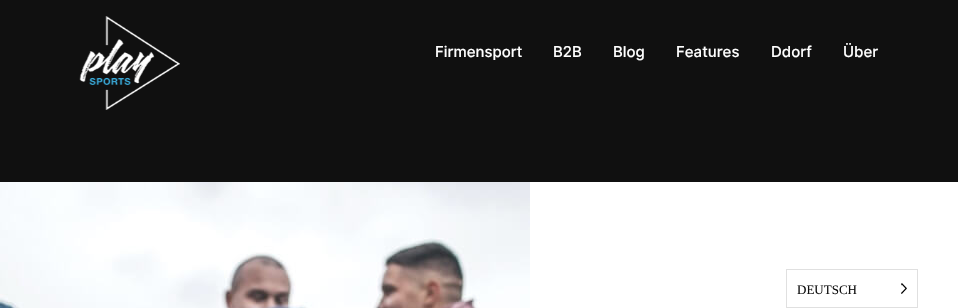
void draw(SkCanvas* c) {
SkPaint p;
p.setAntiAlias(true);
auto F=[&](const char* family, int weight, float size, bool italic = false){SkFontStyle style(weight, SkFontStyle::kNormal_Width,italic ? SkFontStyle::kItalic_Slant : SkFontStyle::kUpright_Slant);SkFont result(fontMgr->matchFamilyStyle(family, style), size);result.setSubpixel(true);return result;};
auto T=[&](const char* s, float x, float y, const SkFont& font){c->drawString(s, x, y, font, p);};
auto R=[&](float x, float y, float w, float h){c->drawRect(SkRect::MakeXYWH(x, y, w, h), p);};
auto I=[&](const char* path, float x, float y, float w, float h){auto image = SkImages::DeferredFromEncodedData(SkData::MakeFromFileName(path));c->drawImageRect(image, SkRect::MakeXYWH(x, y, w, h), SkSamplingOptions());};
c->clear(0xff101010);
I("1.png",79,16,101,94);
auto f1 = F("Inter",500,15);
p.setColor(0xffffffff);
T("Firmensport",435,57,f1);
T("B2B",553,57,f1);
T("Blog",613,57,f1);
T("Features",676,57,f1);
T("Ddorf",771,57,f1);
T("Über",843,57,f1);
R(530,182,428,126);
I("2.png",0,182,530,126);
p.setStroke(true);
p.setStrokeWidth(1);
p.setColor(0xffe0e0e0);
c->drawRect(SkRect::MakeXYWH(786.5,269.5,131,38),p);
auto f2 = F("Liberation Serif",400,13);
p.setStroke(false);
p.setColor(0xff101010);
T("DEUTSCH",797,294,f2);
I("3.png",901,283,6,11);
}
